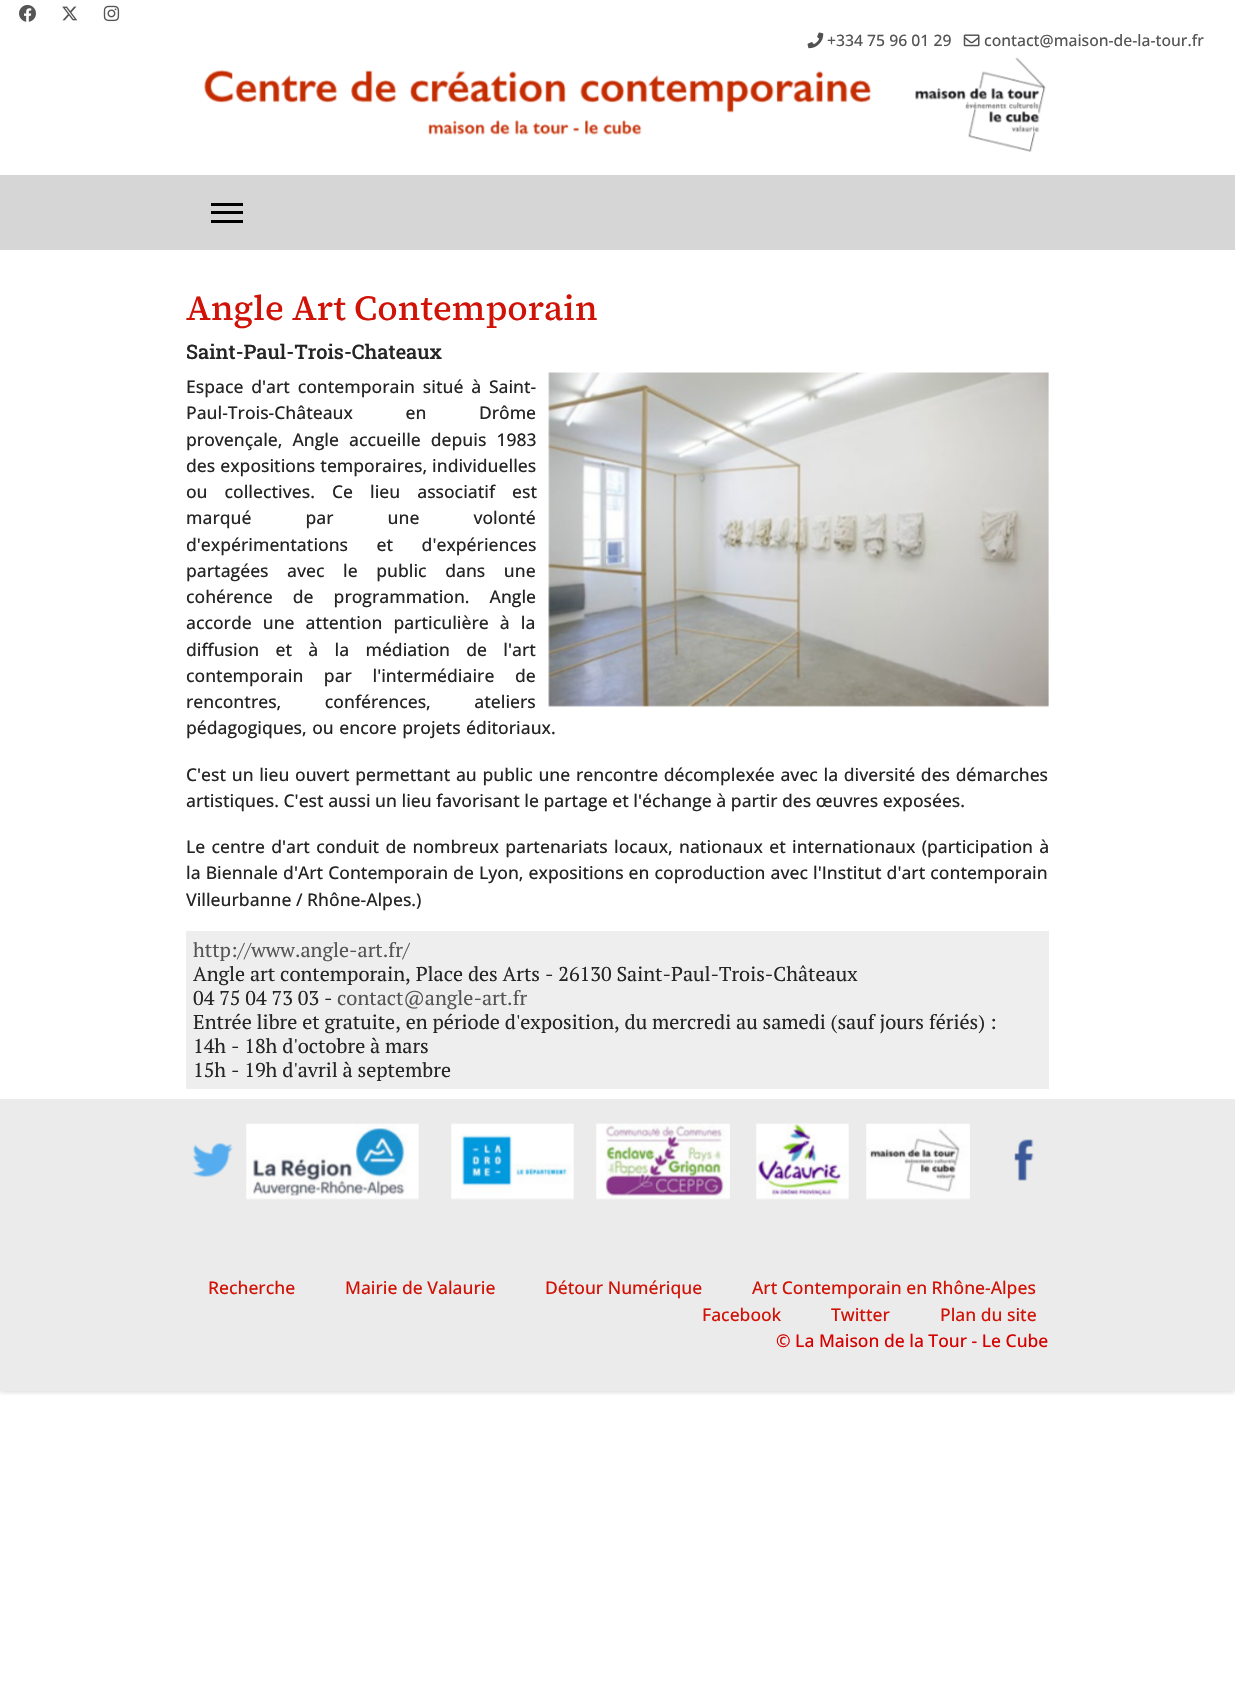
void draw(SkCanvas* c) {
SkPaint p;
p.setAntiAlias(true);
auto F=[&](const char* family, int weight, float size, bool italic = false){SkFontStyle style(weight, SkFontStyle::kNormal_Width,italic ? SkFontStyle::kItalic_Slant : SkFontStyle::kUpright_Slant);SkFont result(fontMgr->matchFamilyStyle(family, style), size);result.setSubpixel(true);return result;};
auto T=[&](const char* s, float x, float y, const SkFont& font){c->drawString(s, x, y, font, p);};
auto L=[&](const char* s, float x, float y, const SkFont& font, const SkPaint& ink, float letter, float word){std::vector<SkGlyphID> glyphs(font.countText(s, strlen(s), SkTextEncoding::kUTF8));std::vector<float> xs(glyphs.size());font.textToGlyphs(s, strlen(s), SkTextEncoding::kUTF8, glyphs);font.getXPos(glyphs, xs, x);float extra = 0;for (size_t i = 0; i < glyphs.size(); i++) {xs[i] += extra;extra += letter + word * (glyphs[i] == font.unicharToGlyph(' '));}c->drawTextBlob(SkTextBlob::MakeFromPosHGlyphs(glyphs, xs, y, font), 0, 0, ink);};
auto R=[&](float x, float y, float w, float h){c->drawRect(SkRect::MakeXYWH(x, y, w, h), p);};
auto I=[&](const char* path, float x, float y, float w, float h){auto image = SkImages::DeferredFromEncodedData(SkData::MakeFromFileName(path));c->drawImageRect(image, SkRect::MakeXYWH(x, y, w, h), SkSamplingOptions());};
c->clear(0xffffffff);
c->save();
c->clipRect(SkRect::MakeXYWH(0,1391,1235,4));
p.setColor(0x33000000);
p.setMaskFilter(SkMaskFilter::MakeBlur(kNormal_SkBlurStyle, 3));
c->drawRect(SkRect::MakeXYWH(0,0,1235,1391),p);
p.setMaskFilter(nullptr);
c->restore();
I("1.png",19,5,17,17);
I("2.png",62,6,16,15);
I("3.png",103,5,17,17);
I("4.png",807,32,17,17);
auto f1 = F("Open Sans",500,15.75);
p.setColor(0xff555555);
T("+334 75 96 01 29",827,46,f1);
I("5.png",963,34,17,13);
T("contact@maison-de-la-tour.fr",984,46,f1);
I("6.png",204,57,842,95);
p.setColor(0xffd6d6d6);
R(0,175,1235,75);
p.setColor(0xff000000);
R(211,203,32,3);
R(211,211,32,3);
R(211,220,32,3);
auto f2 = F("Source Serif 4",500,35);
p.setColor(0xffd11307);
T("Angle Art Contemporain",186,320,f2);
auto f3 = F("Roboto Slab",500,20);
p.setColor(0xff252525);
T("Saint-Paul-Trois-Chateaux",186,359,f3);
auto f4 = F("Open Sans",500,17.5);
L("Espace d'art contemporain situé à Saint-",186,393,f4,p,0,3.25);
I("7.png",548,372,501,335);
L("Paul-Trois-Châteaux en Drôme",186,419,f4,p,0,48);
L("provençale, Angle accueille depuis 1983",186,446,f4,p,0,5.5);
L("des expositions temporaires, individuelles",186,472,f4,p,0,.5);
L("ou collectives. Ce lieu associatif est",186,498,f4,p,0,12.5);
L("marqué par une volonté",186,524,f4,p,0,49.5);
L("d'expérimentations et d'expériences",186,551,f4,p,0,24);
L("partagées avec le public dans une",186,577,f4,p,0,14);
L("cohérence de programmation. Angle",186,603,f4,p,0,15.5);
L("accorde une attention particulière à la",186,629,f4,p,0,6.5);
L("diffusion et à la médiation de l'art",186,656,f4,p,0,11.75);
L("contemporain par l'intermédiaire de",186,682,f4,p,0,16);
L("rencontres, conférences, ateliers",186,708,f4,p,0,39);
L("pédagogiques, ou encore projets éditoriaux.",186,734,f4,p,0,1);
L("C'est un lieu ouvert permettant au public une rencontre décomplexée avec la diversité des démarches",186,781,f4,p,0,1.1);
T("artistiques. C'est aussi un lieu favorisant le partage et l'échange à partir des œuvres exposées.",186,807,f4);
L("Le centre d'art conduit de nombreux partenariats locaux, nationaux et internationaux (participation à",186,853,f4,p,0,1.75);
L("la Biennale d'Art Contemporain de Lyon, expositions en coproduction avec l'Institut d'art contemporain",186,879,f4,p,0,.5);
T("Villeurbanne / Rhône-Alpes.)",186,906,f4);
p.setColor(0xffeeeeee);
R(186,931,863,158);
auto f5 = F("PT Serif",400,20);
p.setColor(0xff555555);
T("http://www.angle-art.fr/",193,957,f5);
p.setColor(0xff252525);
T("Angle art contemporain, Place des Arts - 26130 Saint-Paul-Trois-Châteaux",193,981,f5);
T("04 75 04 73 03 -",193,1005,f5);
p.setColor(0xff555555);
T("contact@angle-art.fr",337,1005,f5);
p.setColor(0xff252525);
T("Entrée libre et gratuite, en période d'exposition, du mercredi au samedi (sauf jours fériés) :",193,1029,f5);
T("14h - 18h d'octobre à mars",193,1053,f5);
T("15h - 19h d'avril à septembre",193,1077,f5);
p.setColor(0xffebebeb);
R(0,1099,1235,292);
I("8.png",192,1143,41,34);
I("9.png",246,1123,173,77);
I("10.png",451,1123,123,77);
I("11.png",596,1123,134,77);
I("12.png",756,1123,93,77);
I("13.png",866,1123,104,77);
I("14.png",1014,1139,20,42);
p.setColor(0xffd11307);
T("Recherche",208,1294,f4);
T("Mairie de Valaurie",345,1294,f4);
T("Détour Numérique",545,1294,f4);
T("Art Contemporain en Rhône-Alpes",752,1294,f4);
T("Facebook",702,1321,f4);
T("Twitter",831,1321,f4);
T("Plan du site",940,1321,f4);
p.setColor(0xffd60000);
T("© La Maison de la Tour - Le Cube",776,1347,f4);
}
